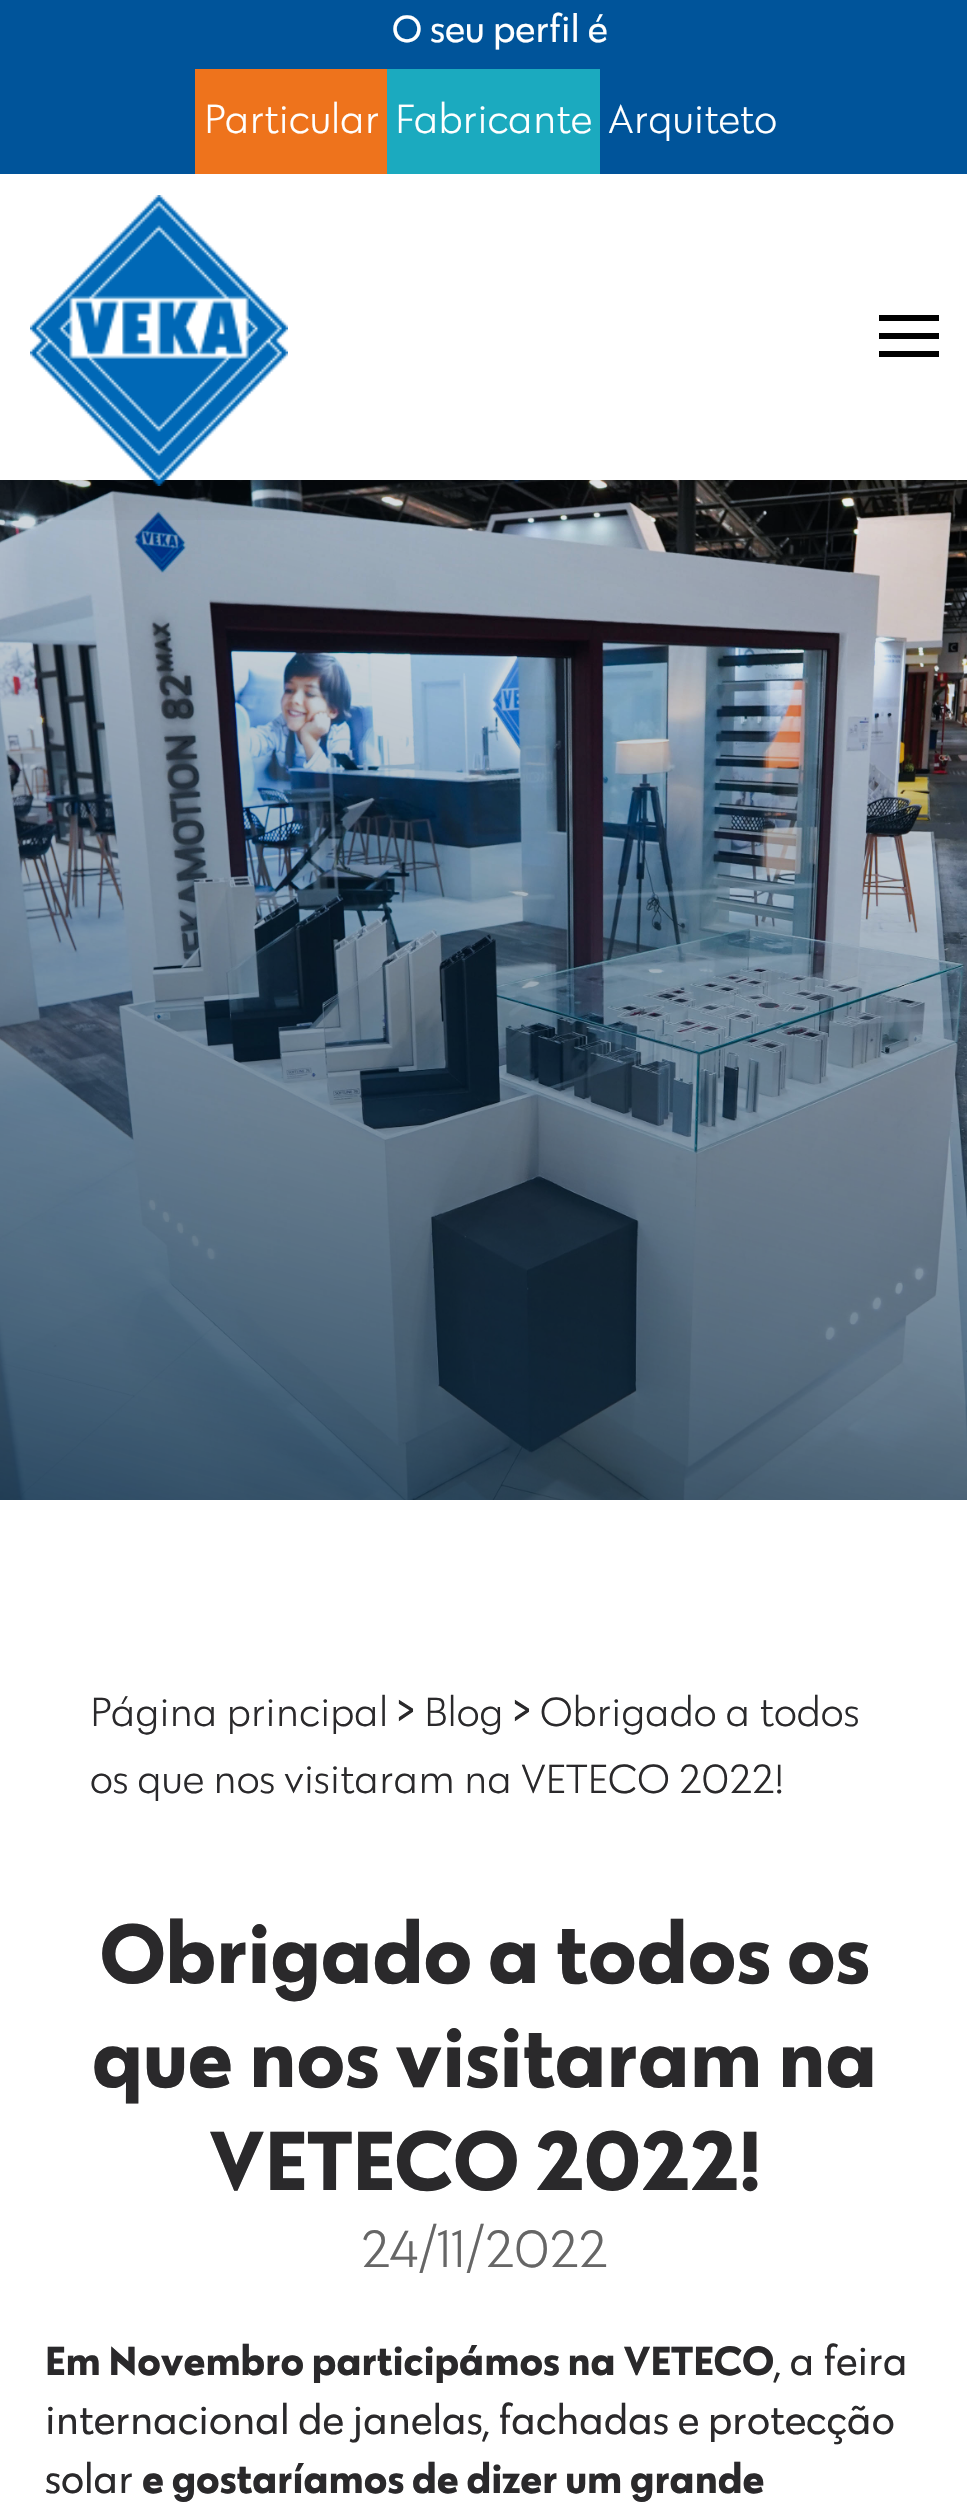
void draw(SkCanvas* c) {
SkPaint p;
p.setAntiAlias(true);
auto F=[&](const char* family, int weight, float size, bool italic = false){SkFontStyle style(weight, SkFontStyle::kNormal_Width,italic ? SkFontStyle::kItalic_Slant : SkFontStyle::kUpright_Slant);SkFont result(fontMgr->matchFamilyStyle(family, style), size);result.setSubpixel(true);return result;};
auto T=[&](const char* s, float x, float y, const SkFont& font){c->drawString(s, x, y, font, p);};
auto R=[&](float x, float y, float w, float h){c->drawRect(SkRect::MakeXYWH(x, y, w, h), p);};
auto I=[&](const char* path, float x, float y, float w, float h){auto image = SkImages::DeferredFromEncodedData(SkData::MakeFromFileName(path));c->drawImageRect(image, SkRect::MakeXYWH(x, y, w, h), SkSamplingOptions());};
c->clear(0xffffffff);
I("2.png",0,480,967,1020);
c->save();
c->clipRect(SkRect::MakeXYWH(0,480,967,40));
p.setColor(0x1a000000);
p.setMaskFilter(SkMaskFilter::MakeBlur(kNormal_SkBlurStyle, 30));
c->drawRect(SkRect::MakeXYWH(0,15,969,480),p);
p.setMaskFilter(nullptr);
c->restore();
p.setColor(0xff00549a);
R(0,0,967,174);
auto f1 = F("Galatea",400,39);
p.setColor(0xffffffff);
T("O seu perfil é",392,42,f1);
p.setColor(0xffee731c);
R(195,69,192,105);
auto f2 = F("Galatea",300,42);
p.setColor(0xffffffff);
T("Particular",204,133,f2);
p.setColor(0xff1baabf);
R(387,69,213,105);
p.setColor(0xffffffff);
T("Fabricante",395,133,f2);
T("Arquiteto",608,133,f2);
I("1.png",30,195,258,291);
p.setColor(0xff000000);
R(879,315,60,6);
R(879,351,60,6);
R(879,333,60,6);
p.setColor(0xff2a292b);
T("Página principal",90,1726,f2);
auto f3 = F("Galatea",400,48);
T(">",398,1726,f3);
T("Blog",424,1726,f2);
T(">",514,1726,f3);
T("Obrigado a todos",540,1726,f2);
T("os que nos visitaram na VETECO 2022!",90,1793,f2);
auto f4 = F("Galatea",700,86.5);
T("Obrigado a todos os",100,1983,f4);
T("que nos visitaram na",92,2087,f4);
T("VETECO 2022!",209,2190,f4);
auto f5 = F("Galatea",300,54);
p.setColor(0xff666666);
T("24/11/2022",361,2267,f5);
auto f6 = F("Galatea",700,42);
p.setColor(0xff2a292b);
T("Em Novembro participámos na VETECO",45,2375,f6);
auto f7 = F("Galatea",400,42);
T(", a feira",774,2375,f7);
T("internacional de janelas, fachadas e protecção",45,2434,f7);
T("solar",45,2493,f7);
T("e gostaríamos de dizer um grande",142,2493,f6);
}
